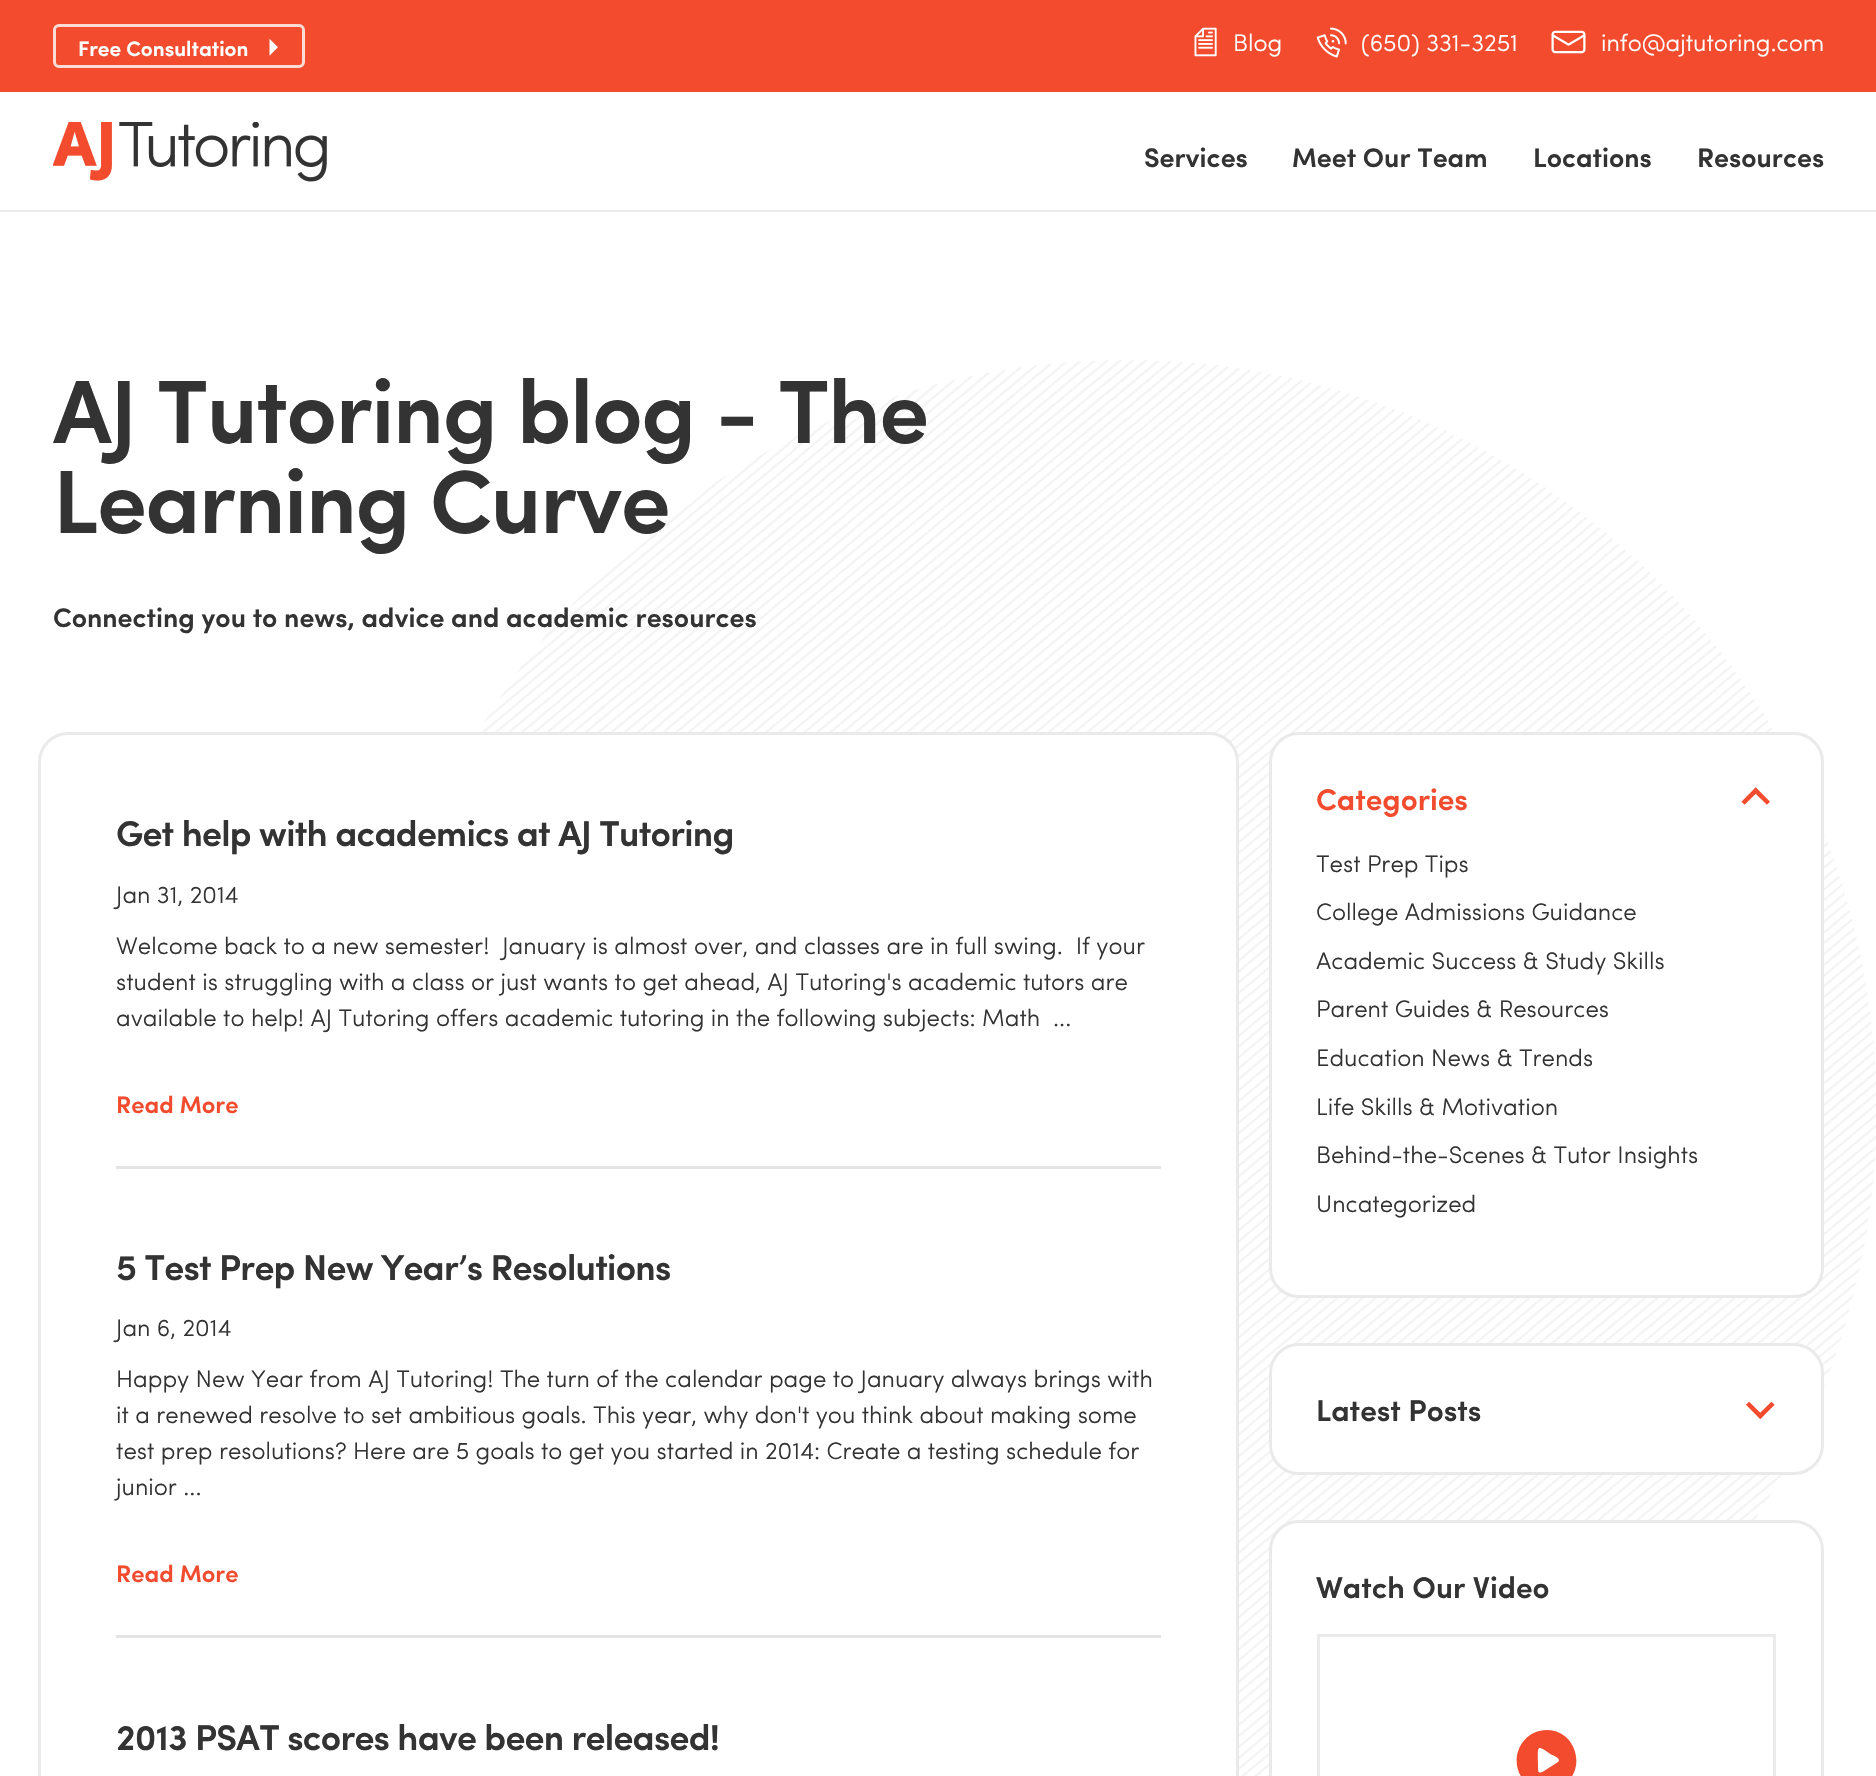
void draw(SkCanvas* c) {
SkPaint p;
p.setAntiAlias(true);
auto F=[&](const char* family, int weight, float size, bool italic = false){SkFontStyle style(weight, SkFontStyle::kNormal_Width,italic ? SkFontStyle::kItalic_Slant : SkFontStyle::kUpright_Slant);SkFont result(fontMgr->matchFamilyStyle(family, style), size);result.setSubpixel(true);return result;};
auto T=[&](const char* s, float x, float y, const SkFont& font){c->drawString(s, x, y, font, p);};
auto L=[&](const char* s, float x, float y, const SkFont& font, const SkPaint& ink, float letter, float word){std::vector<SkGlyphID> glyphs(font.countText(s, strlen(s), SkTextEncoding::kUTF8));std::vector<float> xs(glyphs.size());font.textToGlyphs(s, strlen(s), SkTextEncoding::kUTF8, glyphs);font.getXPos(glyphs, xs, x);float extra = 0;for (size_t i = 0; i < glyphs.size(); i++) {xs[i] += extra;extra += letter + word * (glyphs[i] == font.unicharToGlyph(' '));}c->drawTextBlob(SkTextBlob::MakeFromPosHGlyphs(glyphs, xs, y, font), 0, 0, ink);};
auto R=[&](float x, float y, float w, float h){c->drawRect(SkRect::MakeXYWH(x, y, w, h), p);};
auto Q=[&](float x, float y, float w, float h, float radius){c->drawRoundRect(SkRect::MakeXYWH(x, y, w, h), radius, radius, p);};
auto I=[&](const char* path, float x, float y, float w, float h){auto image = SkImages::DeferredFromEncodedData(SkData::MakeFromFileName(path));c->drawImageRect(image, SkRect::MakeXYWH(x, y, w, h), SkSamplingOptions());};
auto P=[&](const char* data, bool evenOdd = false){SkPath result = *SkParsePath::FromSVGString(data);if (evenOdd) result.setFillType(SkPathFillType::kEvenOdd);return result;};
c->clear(0xffffffff);
I("1.png",481,360,1395,1416);
p.setColor(0xfff24b2e);
R(0,0,1876,92);
p.setStroke(true);
p.setStrokeWidth(3);
p.setColor(0xfffcdbd5);
c->drawRoundRect(SkRect::MakeXYWH(54.5,25.5,249,41),4.5,4.5,p);
auto f1 = F("Sofia",600,21);
p.setStroke(false);
p.setColor(0xffffffff);
T("Free Consultation",78,56,f1);
I("2.png",269,38,9,18);
I("3.png",1194,27,23,30);
auto f2 = F("Sofia",300,24);
T("Blog",1233,51,f2);
I("4.png",1316,27,31,31);
T("(650) 331-3251",1361,51,f2);
I("5.png",1551,30,35,24);
T("info@ajtutoring.com",1601,51,f2);
p.setColor(0xffebebeb);
R(0,210,1876,2);
I("6.png",53,122,274,60);
auto f3 = F("Sofia",600,27);
p.setColor(0xff333333);
T("Services",1144,167,f3);
T("Meet Our Team",1292,167,f3);
T("Locations",1533,167,f3);
T("Resources",1697,167,f3);
auto f4 = F("Sofia",600,90);
L("AJ Tutoring blog - The",53,443,f4,p,-1.5,0);
L("Learning Curve",53,533,f4,p,-1.5,0);
T("Connecting you to news, advice and academic resources",53,627,f3);
p.setColor(0xffffffff);
Q(38,732,1201,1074,30);
p.setStroke(true);
p.setColor(0x1a333333);
c->drawRoundRect(SkRect::MakeXYWH(39.5,733.5,1198,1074),28.5,28.5,p);
p.setStroke(false);
p.setColor(0xffe4e4e4);
R(116,1166,1045,3);
auto f5 = F("Sofia",600,36);
p.setColor(0xff333333);
L("Get help with academics at AJ Tutoring",116,846,f5,p,-.75,0);
T("Jan 31, 2014",116,903,f2);
T("Welcome back to a new semester!  January is almost over, and classes are in full swing.  If your",116,954,f2);
T("student is struggling with a class or just wants to get ahead, AJ Tutoring's academic tutors are",116,990,f2);
T("available to help! AJ Tutoring offers academic tutoring in the following subjects: Math  ...",116,1026,f2);
auto f6 = F("Sofia",600,24);
p.setColor(0xfff24b2e);
T("Read More",116,1113,f6);
p.setColor(0xffe4e4e4);
R(116,1635,1045,3);
p.setColor(0xff333333);
L("5 Test Prep New Year’s Resolutions",116,1280,f5,p,-.75,0);
T("Jan 6, 2014",116,1336,f2);
T("Happy New Year from AJ Tutoring! The turn of the calendar page to January always brings with",116,1387,f2);
T("it a renewed resolve to set ambitious goals. This year, why don't you think about making some",116,1423,f2);
T("test prep resolutions? Here are 5 goals to get you started in 2014: Create a testing schedule for",116,1459,f2);
T("junior ...",116,1495,f2);
p.setColor(0xfff24b2e);
T("Read More",116,1582,f6);
p.setColor(0xff333333);
L("2013 PSAT scores have been released!",116,1750,f5,p,-.75,0);
p.setColor(0xffffffff);
Q(1269,732,555,566,30);
p.setStroke(true);
p.setColor(0x1a333333);
c->drawRoundRect(SkRect::MakeXYWH(1270.5,733.5,552,563),28.5,28.5,p);
auto f7 = F("Sofia",600,30);
p.setStroke(false);
p.setColor(0xfff24b2e);
T("Categories",1316,810,f7);
I("7.png",1741,787,29,18);
p.setColor(0xff333333);
T("Test Prep Tips",1316,872,f2);
T("College Admissions Guidance",1316,920,f2);
T("Academic Success & Study Skills",1316,969,f2);
T("Parent Guides & Resources",1316,1017,f2);
T("Education News & Trends",1316,1066,f2);
T("Life Skills & Motivation",1316,1115,f2);
T("Behind-the-Scenes & Tutor Insights",1316,1163,f2);
T("Uncategorized",1316,1212,f2);
p.setColor(0xffffffff);
Q(1269,1343,555,132,30);
p.setStroke(true);
p.setColor(0x1a333333);
c->drawRoundRect(SkRect::MakeXYWH(1270.5,1344.5,552,129),28.5,28.5,p);
p.setStroke(false);
p.setColor(0xff333333);
T("Latest Posts",1316,1421,f7);
I("8.png",1746,1401,29,19);
p.setColor(0xffffffff);
Q(1269,1520,555,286,30);
p.setStroke(true);
p.setColor(0x1a333333);
c->drawRoundRect(SkRect::MakeXYWH(1270.5,1521.5,552,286),28.5,28.5,p);
p.setStroke(false);
p.setColor(0xff333333);
T("Watch Our Video",1316,1598,f7);
p.setStroke(true);
p.setColor(0xffebebeb);
c->drawRect(SkRect::MakeXYWH(1318.5,1635.5,456,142),p);
p.setStroke(false);
p.setColor(0xfff24b2e);
c->drawPath(P("M1547 1730c-29 0-41 37-19 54c6 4 12 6 19 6c6 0 13-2 18-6c22-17 10-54-18-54zm11 32l-14 9c-7 4-6 0-6-7c0-3-1-14 1-16c3-1 11 6 13 7c1 0 10 4 6 7zm0 0z"),p);
}
